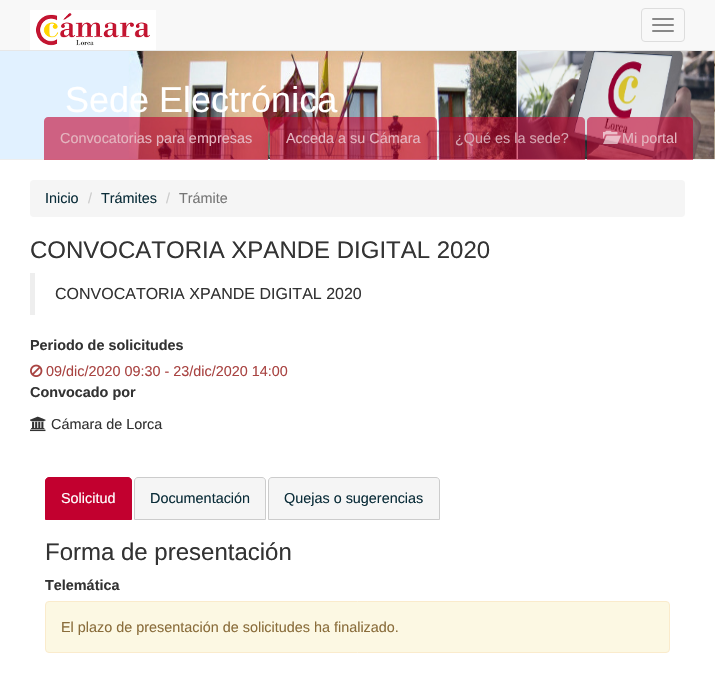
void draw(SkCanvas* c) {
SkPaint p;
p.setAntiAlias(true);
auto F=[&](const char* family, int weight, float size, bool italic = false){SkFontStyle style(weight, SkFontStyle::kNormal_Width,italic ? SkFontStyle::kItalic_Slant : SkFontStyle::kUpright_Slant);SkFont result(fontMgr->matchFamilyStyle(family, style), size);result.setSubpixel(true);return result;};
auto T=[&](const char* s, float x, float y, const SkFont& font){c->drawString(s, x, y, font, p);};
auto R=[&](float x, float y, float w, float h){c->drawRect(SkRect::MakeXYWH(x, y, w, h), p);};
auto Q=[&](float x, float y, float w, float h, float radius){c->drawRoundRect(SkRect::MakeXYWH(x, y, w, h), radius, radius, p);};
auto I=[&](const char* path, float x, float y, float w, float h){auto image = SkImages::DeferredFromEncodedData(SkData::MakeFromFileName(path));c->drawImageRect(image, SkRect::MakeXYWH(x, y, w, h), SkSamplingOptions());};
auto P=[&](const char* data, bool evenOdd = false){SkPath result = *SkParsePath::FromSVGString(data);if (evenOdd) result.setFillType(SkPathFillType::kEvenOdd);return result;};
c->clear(0xffffffff);
p.setColor(0xfff8f8f8);
R(0,0,715,50);
p.setColor(0xffe7e7e7);
R(0,50,715,1);
I("1.png",30,10,126,40);
p.setStroke(true);
p.setStrokeWidth(1);
p.setColor(0xffdddddd);
c->drawRoundRect(SkRect::MakeXYWH(641.5,8.5,43,33),3.5,3.5,p);
p.setStroke(false);
p.setColor(0xff888888);
Q(652,18,22,2,1);
Q(652,24,22,2,1);
Q(652,30,22,2,1);
I("2.png",0,51,715,108);
p.setColor(0xffeeeeee);
R(0,159,715,1);
auto f1 = F("Liberation Sans",400,36);
p.setColor(0xffffffff);
T("Sede Electrónica",65,112,f1);
p.setColor(0x99c2002f);
c->drawPath(P("M48 117h216c2 0 4 2 4 4v39h-224v-39c0-2 2-4 4-4z"),p);
auto f2 = F("Liberation Sans",400,14.4);
p.setColor(0xffe4b5bf);
T("Convocatorias para empresas",60,143,f2);
p.setColor(0x99c2002f);
c->drawPath(P("M274 117h159c2 0 4 2 4 4v39h-167v-39c0-2 2-4 4-4z"),p);
p.setColor(0xffe4b5bf);
T("Acceda a su Cámara",286,143,f2);
p.setColor(0x99c2002f);
c->drawPath(P("M443 117h138c2 0 4 2 4 4v39h-146v-39c0-2 2-4 4-4z"),p);
p.setColor(0xffd5a6b1);
T("¿Qué es la sede?",455,143,f2);
p.setColor(0x99c2002f);
c->drawPath(P("M591 117h98c2 0 4 2 4 4v39h-106v-39c0-2 2-4 4-4z"),p);
I("3.png",603,130,18,14);
p.setColor(0xffe4b5bf);
T("Mi portal",622,143,f2);
p.setColor(0xfff5f5f5);
Q(30,180,655,37,4);
p.setColor(0xff0b2d39);
T("Inicio",45,203,f2);
p.setColor(0xffcccccc);
T("/",88,203,f2);
p.setColor(0xff0b2d39);
T("Trámites",101,203,f2);
p.setColor(0xffcccccc);
T("/",166,203,f2);
p.setColor(0xff777777);
T("Trámite",179,203,f2);
auto f3 = F("Liberation Sans",400,24);
p.setColor(0xff333333);
T("CONVOCATORIA XPANDE DIGITAL 2020",30,258,f3);
p.setColor(0xffeeeeee);
R(30,273,5,42);
auto f4 = F("Liberation Sans",400,16);
p.setColor(0xff333333);
T("CONVOCATORIA XPANDE DIGITAL 2020",55,299,f4);
auto f5 = F("Liberation Sans",700,14.4);
T("Periodo de solicitudes",30,350,f5);
I("4.png",30,364,13,13);
p.setColor(0xffa94442);
T("09/dic/2020 09:30 - 23/dic/2020 14:00",46,376,f2);
p.setColor(0xff333333);
T("Convocado por",30,397,f5);
I("5.png",30,416,16,16);
T("Cámara de Lorca",51,429,f2);
p.setColor(0xffc2002f);
c->drawPath(P("M49 477.5h79c2 0 3.5 1.5 3.5 3.5v38.5h-86v-38.5c0-2 1.5-3.5 3.5-3.5z"),p);
p.setStroke(true);
c->drawPath(P("M49 477.5h79c2 0 3.5 1.5 3.5 3.5v38.5h-86v-38.5c0-2 1.5-3.5 3.5-3.5z"),p);
p.setStroke(false);
p.setColor(0xffffffff);
T("Solicitud",61,503,f2);
p.setColor(0xfff5f5f5);
c->drawPath(P("M138 477.5h124c2 0 3.5 1.5 3.5 3.5v38.5h-131v-38.5c0-2 1.5-3.5 3.5-3.5z"),p);
p.setStroke(true);
p.setColor(0xffcccccc);
c->drawPath(P("M138 477.5h124c2 0 3.5 1.5 3.5 3.5v38.5h-131v-38.5c0-2 1.5-3.5 3.5-3.5z"),p);
p.setStroke(false);
p.setColor(0xff0b2d39);
T("Documentación",150,503,f2);
p.setColor(0xfff5f5f5);
c->drawPath(P("M272 477.5h164c2 0 3.5 1.5 3.5 3.5v38.5h-171v-38.5c0-2 1.5-3.5 3.5-3.5z"),p);
p.setStroke(true);
p.setColor(0xffcccccc);
c->drawPath(P("M272 477.5h164c2 0 3.5 1.5 3.5 3.5v38.5h-171v-38.5c0-2 1.5-3.5 3.5-3.5z"),p);
p.setStroke(false);
p.setColor(0xff0b2d39);
T("Quejas o sugerencias",284,503,f2);
p.setColor(0xff333333);
T("Forma de presentación",45,560,f3);
T("Telemática",45,590,f5);
p.setColor(0xfffcf8e3);
c->drawRoundRect(SkRect::MakeXYWH(45.5,601.5,624,51),3.5,3.5,p);
p.setStroke(true);
p.setColor(0xfffaebcc);
c->drawRoundRect(SkRect::MakeXYWH(45.5,601.5,624,51),3.5,3.5,p);
p.setStroke(false);
p.setColor(0xff8a6d3b);
T("El plazo de presentación de solicitudes ha finalizado.",61,632,f2);
}
